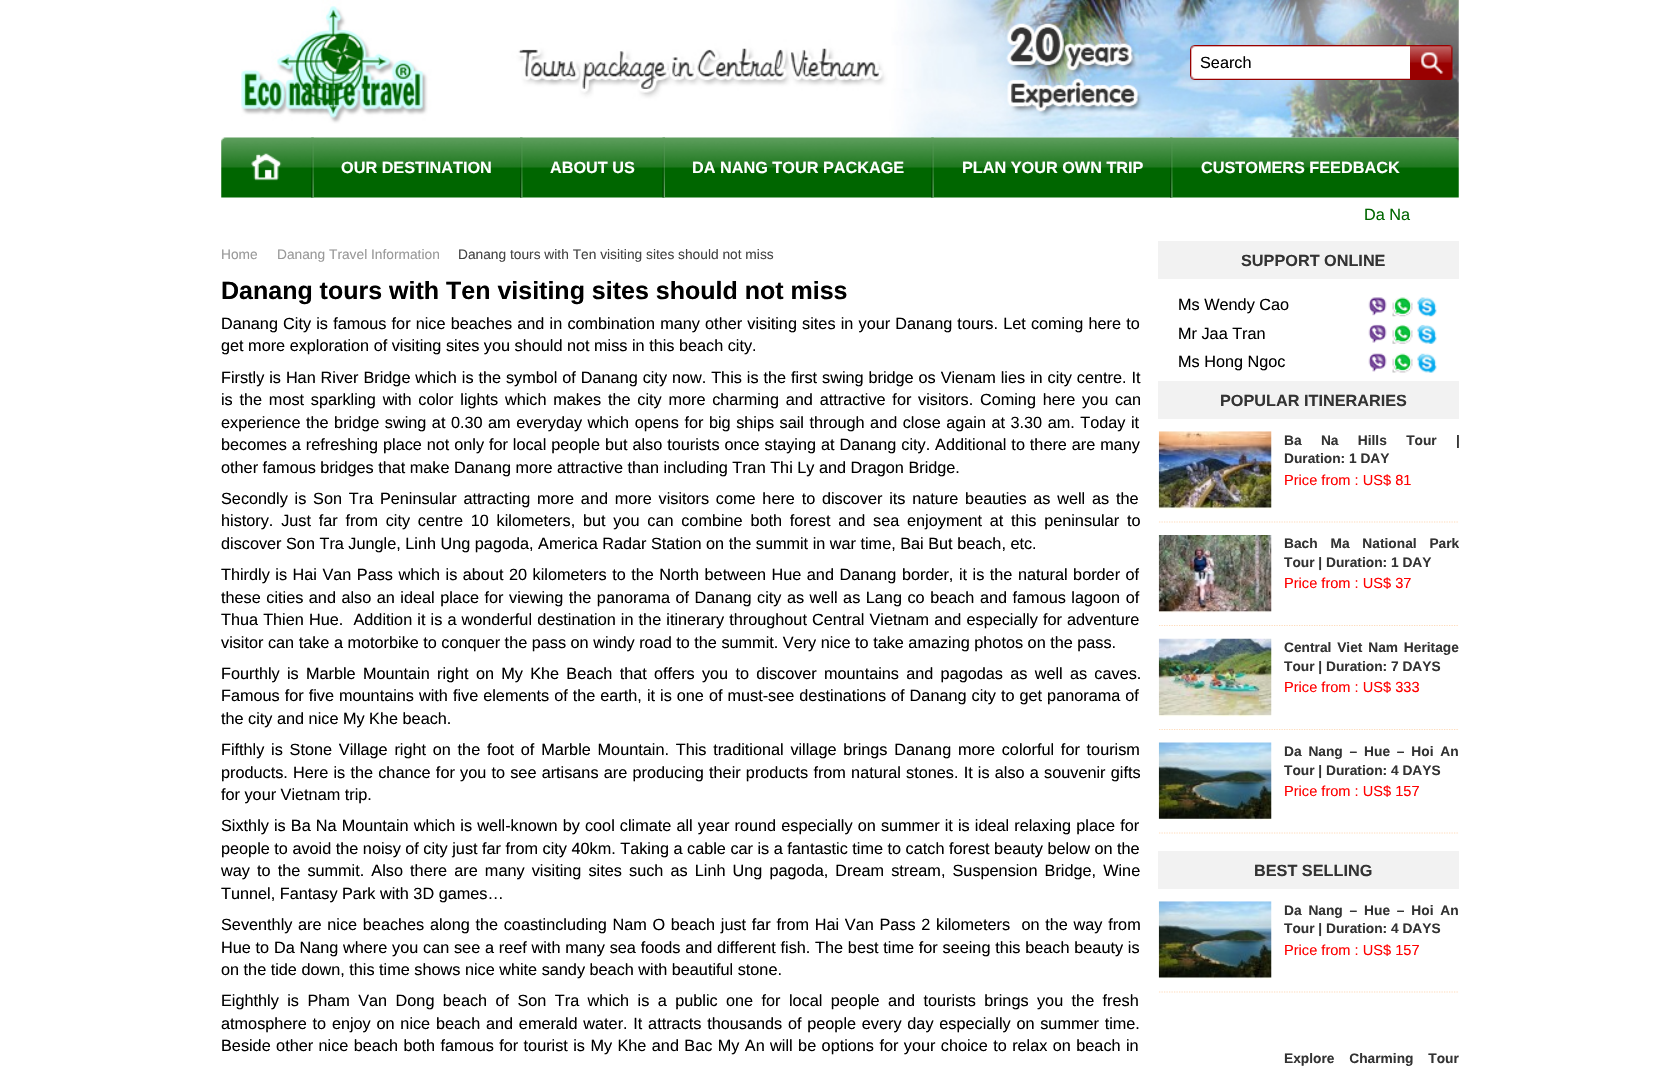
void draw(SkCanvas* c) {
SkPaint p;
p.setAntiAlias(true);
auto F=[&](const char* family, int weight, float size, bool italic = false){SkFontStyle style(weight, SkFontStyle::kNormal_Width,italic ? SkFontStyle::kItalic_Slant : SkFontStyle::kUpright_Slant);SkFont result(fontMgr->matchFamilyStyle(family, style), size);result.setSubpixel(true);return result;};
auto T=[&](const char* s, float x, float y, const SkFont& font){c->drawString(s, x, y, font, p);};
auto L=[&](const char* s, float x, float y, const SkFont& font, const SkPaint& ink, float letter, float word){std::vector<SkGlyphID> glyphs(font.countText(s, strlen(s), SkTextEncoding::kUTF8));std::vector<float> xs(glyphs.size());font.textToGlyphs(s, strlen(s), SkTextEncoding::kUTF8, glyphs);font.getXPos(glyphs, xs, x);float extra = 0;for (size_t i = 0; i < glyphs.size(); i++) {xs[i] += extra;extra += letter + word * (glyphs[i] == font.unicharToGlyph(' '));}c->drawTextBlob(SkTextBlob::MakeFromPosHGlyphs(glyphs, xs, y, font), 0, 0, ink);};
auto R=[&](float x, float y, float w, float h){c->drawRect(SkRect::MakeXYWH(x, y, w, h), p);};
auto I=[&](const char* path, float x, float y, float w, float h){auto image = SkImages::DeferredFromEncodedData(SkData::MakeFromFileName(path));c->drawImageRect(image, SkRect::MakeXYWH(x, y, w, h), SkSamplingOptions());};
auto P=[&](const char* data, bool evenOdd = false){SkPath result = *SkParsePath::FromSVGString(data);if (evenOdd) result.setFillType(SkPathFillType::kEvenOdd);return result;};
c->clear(0xffffffff);
I("1.png",241,0,1218,138);
I("2.png",1190,45,220,35);
auto f1 = F("Liberation Sans",400,16.25);
p.setColor(0xff000000);
T("Search",1200,68,f1);
I("3.png",1410,45,43,35);
I("4.png",221,137,1238,61);
I("5.png",311,137,3,61);
I("6.png",251,153,31,28);
I("7.png",520,137,3,61);
auto f2 = F("Liberation Sans",700,16.25);
p.setColor(0xffffffff);
T("OUR DESTINATION",341,173,f2);
I("8.png",662,137,3,61);
T("ABOUT US",550,173,f2);
I("9.png",931,137,3,61);
T("DA NANG TOUR PACKAGE",692,173,f2);
I("10.png",1170,137,3,61);
T("PLAN YOUR OWN TRIP",962,173,f2);
T("CUSTOMERS FEEDBACK",1201,173,f2);
p.setColor(0xff006600);
T("Da Na",1364,220,f1);
auto f3 = F("Liberation Sans",400,13.75);
p.setColor(0xff999999);
T("Home",221,259,f3);
T("Danang Travel Information",277,259,f3);
p.setColor(0xff444444);
T("Danang tours with Ten visiting sites should not miss",458,259,f3);
auto f4 = F("Liberation Sans",700,25);
p.setColor(0xff000000);
T("Danang tours with Ten visiting sites should not miss",221,299,f4);
L("Danang City is famous for nice beaches and in combination many other visiting sites in your Danang tours. Let coming here to",221,329,f1,p,0,.65);
T("get more exploration of visiting sites you should not miss in this beach city.",221,351,f1);
L("Firstly is Han River Bridge which is the symbol of Danang city now. This is the first swing bridge os Vienam lies in city centre. It",221,383,f1,p,0,.4);
L("is the most sparkling with color lights which makes the city more charming and attractive for visitors. Coming here you can",221,405,f1,p,0,2.25);
L("experience the bridge swing at 0.30 am everyday which opens for big ships sail through and close again at 3.30 am. Today it",221,428,f1,p,0,1);
L("becomes a refreshing place not only for local people but also tourists once staying at Danang city. Additional to there are many",221,450,f1,p,0,.4);
T("other famous bridges that make Danang more attractive than including Tran Thi Ly and Dragon Bridge.",221,473,f1);
L("Secondly is Son Tra Peninsular attracting more and more visitors come here to discover its nature beauties as well as the",221,504,f1,p,0,2.25);
L("history. Just far from city centre 10 kilometers, but you can combine both forest and sea enjoyment at this peninsular to",221,526,f1,p,0,3.25);
T("discover Son Tra Jungle, Linh Ung pagoda, America Radar Station on the summit in war time, Bai But beach, etc.",221,549,f1);
L("Thirdly is Hai Van Pass which is about 20 kilometers to the North between Hue and Danang border, it is the natural border of",221,580,f1,p,0,1);
L("these cities and also an ideal place for viewing the panorama of Danang city as well as Lang co beach and famous lagoon of",221,603,f1,p,0,1);
L("Thua Thien Hue.  Addition it is a wonderful destination in the itinerary throughout Central Vietnam and especially for adventure",221,625,f1,p,0,.6);
T("visitor can take a motorbike to conquer the pass on windy road to the summit. Very nice to take amazing photos on the pass.",221,648,f1);
L("Fourthly is Marble Mountain right on My Khe Beach that offers you to discover mountains and pagodas as well as caves.",221,679,f1,p,0,2.75);
L("Famous for five mountains with five elements of the earth, it is one of must-see destinations of Danang city to get panorama of",221,701,f1,p,0,.5);
T("the city and nice My Khe beach.",221,724,f1);
L("Fifthly is Stone Village right on the foot of Marble Mountain. This traditional village brings Danang more colorful for tourism",221,755,f1,p,0,2.25);
L("products. Here is the chance for you to see artisans are producing their products from natural stones. It is also a souvenir gifts",221,778,f1,p,0,.7);
T("for your Vietnam trip.",221,800,f1);
L("Sixthly is Ba Na Mountain which is well-known by cool climate all year round especially on summer it is ideal relaxing place for",221,831,f1,p,0,.6);
T("people to avoid the noisy of city just far from city 40km. Taking a cable car is a fantastic time to catch forest beauty below on the",221,854,f1);
L("way to the summit. Also there are many visiting sites such as Linh Ung pagoda, Dream stream, Suspension Bridge, Wine",221,876,f1,p,0,2.6);
T("Tunnel, Fantasy Park with 3D games…",221,899,f1);
L("Seventhly are nice beaches along the coastincluding Nam O beach just far from Hai Van Pass 2 kilometers  on the way from",221,930,f1,p,0,1.2);
L("Hue to Da Nang where you can see a reef with many sea foods and different fish. The best time for seeing this beach beauty is",221,953,f1,p,0,.25);
T("on the tide down, this time shows nice white sandy beach with beautiful stone.",221,975,f1);
L("Eighthly is Pham Van Dong beach of Son Tra which is a public one for local people and tourists brings you the fresh",221,1006,f1,p,0,3.9);
L("atmosphere to enjoy on nice beach and emerald water. It attracts thousands of people every day especially on summer time.",221,1029,f1,p,0,1.25);
L("Beside other nice beach both famous for tourist is My Khe and Bac My An will be options for your choice to relax on beach in",221,1051,f1,p,0,.9);
p.setColor(0xfff2f2f2);
R(1158,241,301,38);
p.setColor(0xff333333);
T("SUPPORT ONLINE",1241,266,f2);
p.setColor(0xff000000);
T("Ms Wendy Cao",1178,310,f1);
I("11.png",1368,297,19,19);
I("12.png",1392,297,21,20);
I("13.png",1417,297,20,20);
T("Mr Jaa Tran",1178,339,f1);
I("14.png",1368,324,19,19);
I("15.png",1392,324,21,20);
I("16.png",1417,324,20,20);
T("Ms Hong Ngoc",1178,367,f1);
I("17.png",1368,353,19,19);
I("18.png",1392,353,21,20);
I("19.png",1417,353,20,20);
p.setColor(0xfff2f2f2);
R(1158,381,301,38);
p.setColor(0xff333333);
T("POPULAR ITINERARIES",1220,406,f2);
p.setStroke(true);
p.setStrokeWidth(1.2);
p.setColor(0xffffdbba);
p.setPathEffect(SkDashPathEffect::Make({{1.25f,1.25f}}, 0));
c->drawPath(P("M1159 522h300"),p);
p.setPathEffect(nullptr);
I("20.png",1158,431,114,78);
auto f5 = F("Liberation Sans",700,13.75);
p.setStroke(false);
p.setColor(0xff333333);
L("Ba Na Hills Tour |",1284,445,f5,p,0,15.5);
T("Duration: 1 DAY",1284,463,f5);
auto f6 = F("Liberation Sans",400,14.6);
p.setColor(0xffff0000);
T("Price from : US$ 81",1284,485,f6);
p.setStroke(true);
p.setColor(0xffffdbba);
p.setPathEffect(SkDashPathEffect::Make({{1.25f,1.25f}}, 0));
c->drawPath(P("M1159 625.5h300"),p);
p.setPathEffect(nullptr);
I("21.png",1158,535,114,78);
p.setStroke(false);
p.setColor(0xff333333);
L("Bach Ma National Park",1284,548,f5,p,0,9);
T("Tour | Duration: 1 DAY",1284,567,f5);
p.setColor(0xffff0000);
T("Price from : US$ 37",1284,588,f6);
p.setStroke(true);
p.setColor(0xffffdbba);
p.setPathEffect(SkDashPathEffect::Make({{1.25f,1.25f}}, 0));
c->drawPath(P("M1159 729.5h300"),p);
p.setPathEffect(nullptr);
I("22.png",1158,638,114,79);
p.setStroke(false);
p.setColor(0xff333333);
L("Central Viet Nam Heritage",1284,652,f5,p,0,2);
T("Tour | Duration: 7 DAYS",1284,671,f5);
p.setColor(0xffff0000);
T("Price from : US$ 333",1284,692,f6);
p.setStroke(true);
p.setColor(0xffffdbba);
p.setPathEffect(SkDashPathEffect::Make({{1.25f,1.25f}}, 0));
c->drawPath(P("M1159 833h300"),p);
p.setPathEffect(nullptr);
I("23.png",1158,742,114,78);
p.setStroke(false);
p.setColor(0xff333333);
L("Da Nang – Hue – Hoi An",1284,756,f5,p,0,3);
T("Tour | Duration: 4 DAYS",1284,775,f5);
p.setColor(0xffff0000);
T("Price from : US$ 157",1284,796,f6);
p.setColor(0xfff2f2f2);
R(1158,851,301,38);
p.setColor(0xff333333);
T("BEST SELLING",1254,876,f2);
p.setStroke(true);
p.setColor(0xffffdbba);
p.setPathEffect(SkDashPathEffect::Make({{1.25f,1.25f}}, 0));
c->drawPath(P("M1159 992h300"),p);
p.setPathEffect(nullptr);
I("24.png",1158,901,114,78);
p.setStroke(false);
p.setColor(0xff333333);
L("Da Nang – Hue – Hoi An",1284,915,f5,p,0,3);
T("Tour | Duration: 4 DAYS",1284,933,f5);
p.setColor(0xffff0000);
T("Price from : US$ 157",1284,955,f6);
p.setColor(0xff333333);
L("Explore Charming Tour",1284,1063,f5,p,0,11);
}
